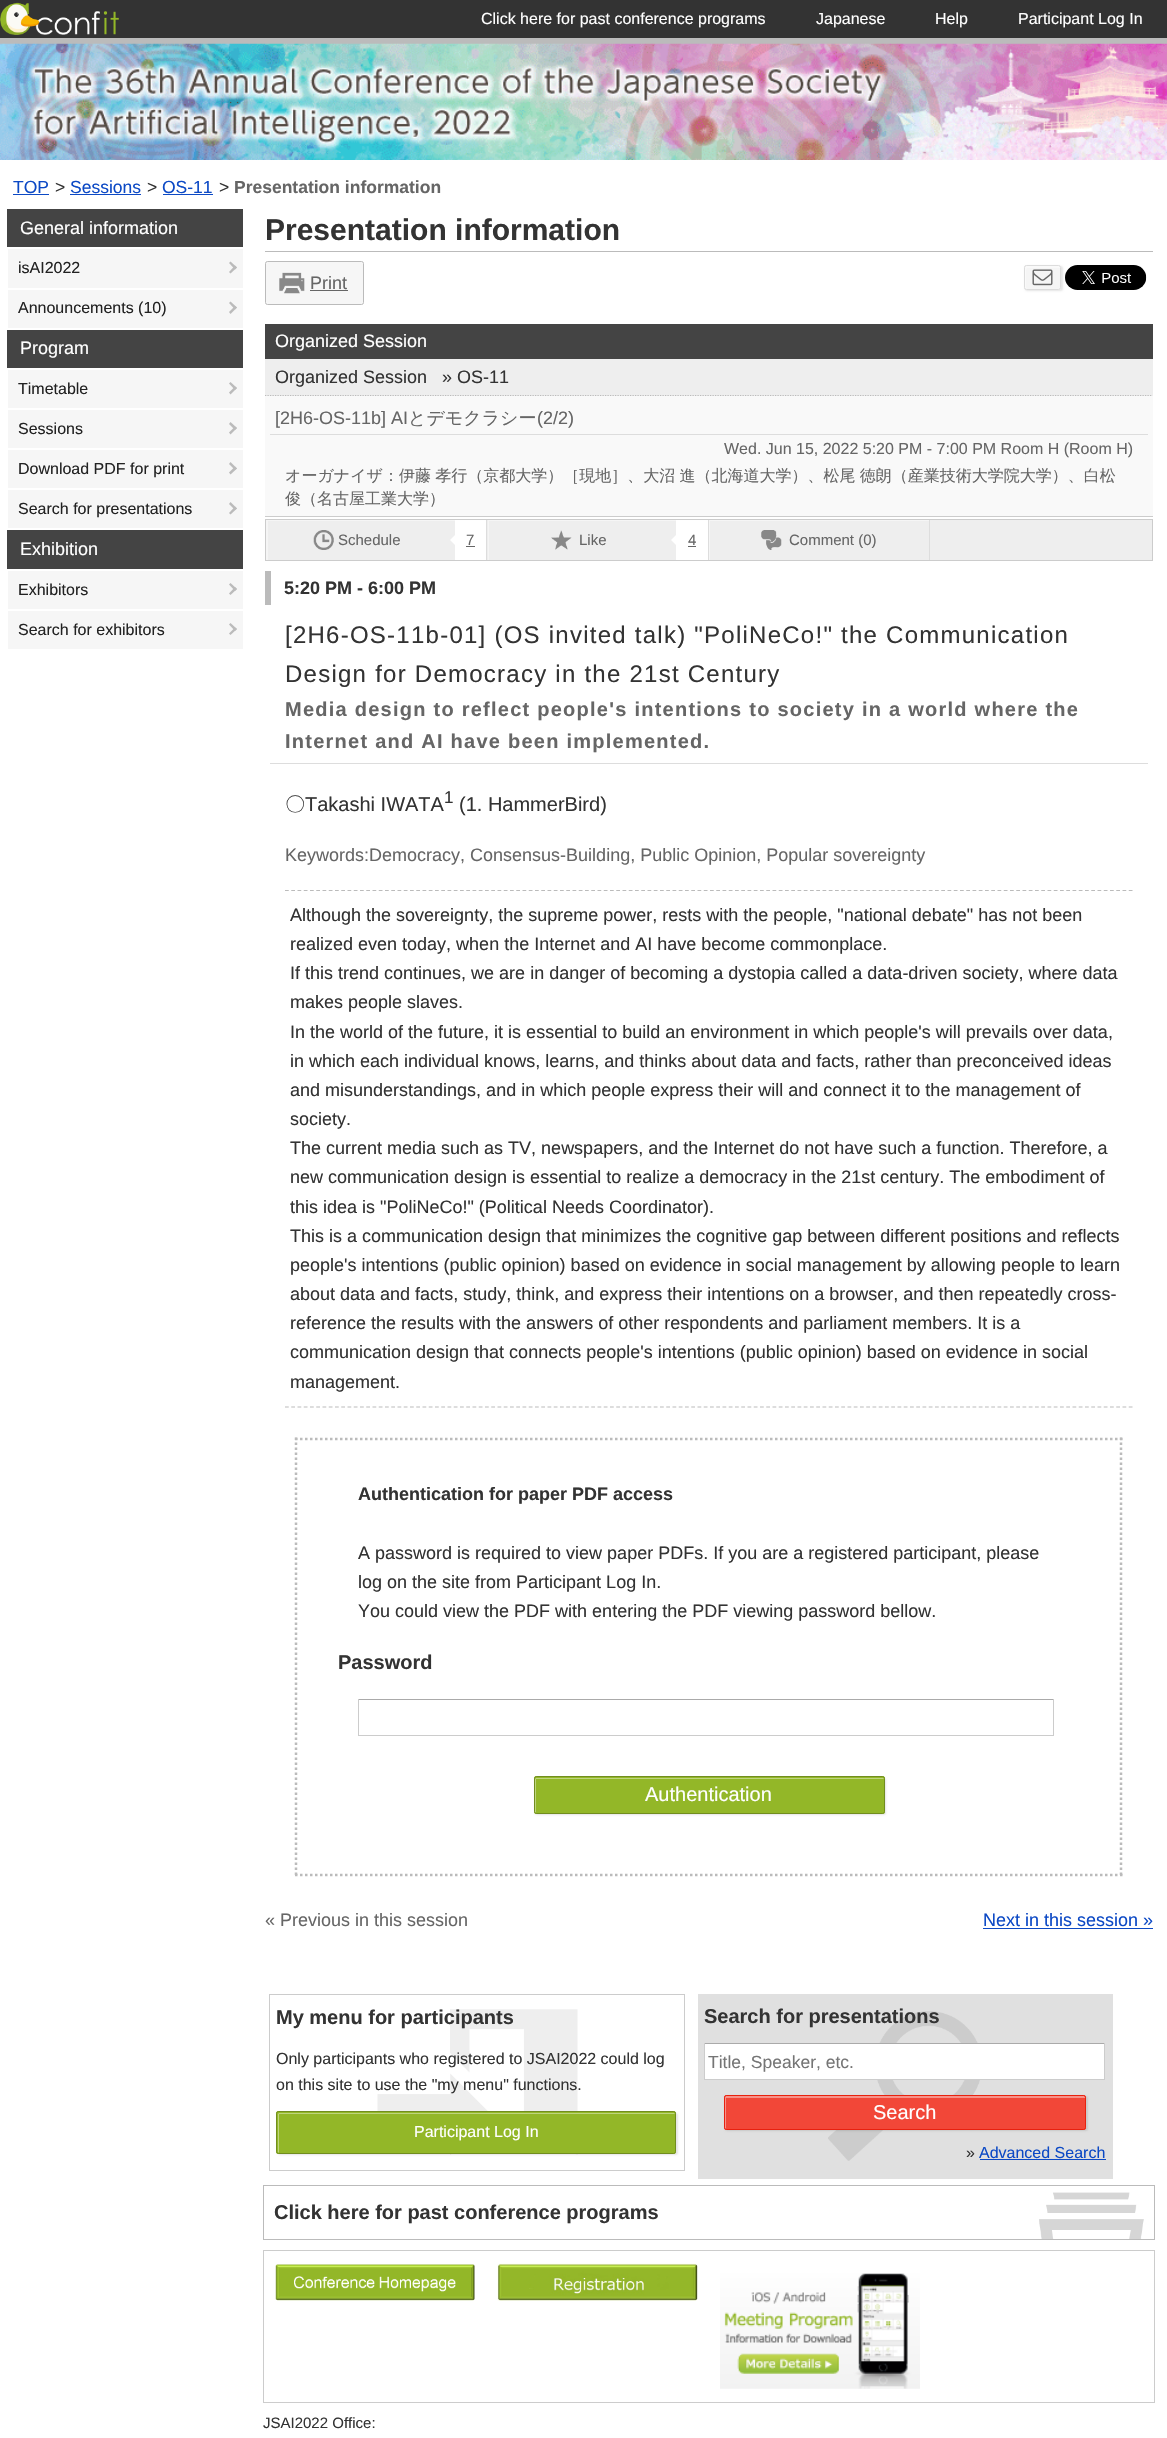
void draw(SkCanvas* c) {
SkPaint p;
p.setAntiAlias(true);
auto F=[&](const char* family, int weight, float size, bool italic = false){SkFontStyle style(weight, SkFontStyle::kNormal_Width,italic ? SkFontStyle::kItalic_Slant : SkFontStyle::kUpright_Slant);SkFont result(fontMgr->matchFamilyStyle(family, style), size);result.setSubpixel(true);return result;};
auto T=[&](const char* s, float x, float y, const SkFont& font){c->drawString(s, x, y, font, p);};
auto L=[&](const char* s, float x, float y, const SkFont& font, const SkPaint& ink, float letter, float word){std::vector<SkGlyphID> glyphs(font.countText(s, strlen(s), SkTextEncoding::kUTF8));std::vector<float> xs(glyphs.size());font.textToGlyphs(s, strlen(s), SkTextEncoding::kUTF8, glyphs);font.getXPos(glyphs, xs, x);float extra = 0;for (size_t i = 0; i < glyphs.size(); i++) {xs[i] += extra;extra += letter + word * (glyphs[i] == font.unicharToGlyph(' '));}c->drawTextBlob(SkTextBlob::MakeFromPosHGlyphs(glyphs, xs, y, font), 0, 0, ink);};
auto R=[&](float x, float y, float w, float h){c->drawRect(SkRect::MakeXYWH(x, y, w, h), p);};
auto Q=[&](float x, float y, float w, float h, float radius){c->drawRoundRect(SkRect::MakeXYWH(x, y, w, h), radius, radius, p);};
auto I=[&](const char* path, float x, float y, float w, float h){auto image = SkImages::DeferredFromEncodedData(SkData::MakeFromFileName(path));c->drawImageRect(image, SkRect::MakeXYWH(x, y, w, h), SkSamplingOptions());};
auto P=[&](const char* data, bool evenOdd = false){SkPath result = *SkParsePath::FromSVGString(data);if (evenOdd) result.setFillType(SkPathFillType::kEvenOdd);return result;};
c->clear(0xff333333);
p.setColor(0xffbbbbbb);
R(0,38,1167,6);
I("1.png",0,2,119,33);
auto f1 = F("Liberation Sans",400,16);
p.setColor(0xffffffff);
T("Click here for past conference programs",481,24,f1);
T("Japanese",816,24,f1);
T("Help",935,24,f1);
T("Participant Log In",1018,24,f1);
I("2.png",0,43,1167,117);
R(0,160,1167,2278);
auto f2 = F("Liberation Sans",400,17.5);
p.setColor(0xff0c49c5);
T("TOP",13,193,f2);
R(13,194,36,1);
p.setColor(0xff333333);
T(">",55,193,f2);
p.setColor(0xff0c49c5);
T("Sessions",70,193,f2);
R(70,194,71,1);
p.setColor(0xff333333);
T(">",147,193,f2);
p.setColor(0xff0c49c5);
T("OS-11",162,193,f2);
R(163,194,50,1);
p.setColor(0xff333333);
T(">",219,193,f2);
auto f3 = F("Liberation Sans",700,17.5);
p.setColor(0xff666666);
T("Presentation information",234,193,f3);
p.setColor(0xff444444);
R(7,209,236,38);
auto f4 = F("Liberation Sans",400,18);
p.setColor(0xffffffff);
T("General information",20,234,f4);
p.setColor(0xfff6f6f6);
R(8,249,235,39);
p.setColor(0xff222222);
T("isAI2022",18,273,f1);
p.setColor(0xffbbbbbb);
c->drawPath(P("M230.5 261.5l6.5 6l-2 2l-6-6.5z"),p);
c->drawPath(P("M235 265.5l2 2l-6.5 6l-1.5-1.5z"),p);
p.setColor(0xfff6f6f6);
R(8,290,235,38);
p.setColor(0xff222222);
T("Announcements (10)",18,313,f1);
p.setColor(0xffbbbbbb);
c->drawPath(P("M230.5 301.5l6.5 6l-2 2l-6-6.5z"),p);
c->drawPath(P("M235 306l2 1.5l-6.5 6.5l-1.5-2z"),p);
p.setColor(0xff444444);
R(7,330,236,38);
p.setColor(0xffffffff);
T("Program",20,354,f4);
p.setColor(0xfff6f6f6);
R(8,370,235,38);
p.setColor(0xff222222);
T("Timetable",18,394,f1);
p.setColor(0xffbbbbbb);
c->drawPath(P("M230.5 382l6.5 6l-2 2l-6-6.5z"),p);
c->drawPath(P("M235 386.5l2 1.5l-6.5 6.5l-1.5-2z"),p);
p.setColor(0xfff6f6f6);
R(8,410,235,38);
p.setColor(0xff222222);
T("Sessions",18,434,f1);
p.setColor(0xffbbbbbb);
c->drawPath(P("M230.5 422l6.5 6l-2 2l-6-6z"),p);
c->drawPath(P("M235 426.5l2 1.5l-6.5 6.5l-1.5-2z"),p);
p.setColor(0xfff6f6f6);
R(8,450,235,38);
p.setColor(0xff222222);
T("Download PDF for print",18,474,f1);
p.setColor(0xffbbbbbb);
c->drawPath(P("M230.5 462l6.5 6.5l-2 1.5l-6-6z"),p);
c->drawPath(P("M235 466.5l2 2l-6.5 6l-1.5-2z"),p);
p.setColor(0xfff6f6f6);
R(8,490,235,38);
p.setColor(0xff222222);
T("Search for presentations",18,514,f1);
p.setColor(0xffbbbbbb);
c->drawPath(P("M230.5 502l6.5 6.5l-2 1.5l-6-6z"),p);
c->drawPath(P("M235 506.5l2 2l-6.5 6l-1.5-1.5z"),p);
p.setColor(0xff444444);
R(7,530,236,39);
p.setColor(0xffffffff);
T("Exhibition",20,555,f4);
p.setColor(0xfff6f6f6);
R(8,571,235,38);
p.setColor(0xff222222);
T("Exhibitors",18,595,f1);
p.setColor(0xffbbbbbb);
c->drawPath(P("M230.5 583l6.5 6l-2 2l-6-6.5z"),p);
c->drawPath(P("M235 587l2 2l-6.5 6l-1.5-1.5z"),p);
p.setColor(0xfff6f6f6);
R(8,611,235,38);
p.setColor(0xff222222);
T("Search for exhibitors",18,635,f1);
p.setColor(0xffbbbbbb);
c->drawPath(P("M230.5 623l6.5 6l-2 2l-6-6.5z"),p);
c->drawPath(P("M235 627.5l2 1.5l-6.5 6l-1.5-1.5z"),p);
R(265,251,888,1);
auto f5 = F("Liberation Sans",700,30);
p.setColor(0xff333333);
T("Presentation information",265,240,f5);
p.setColor(0xfff6f6f6);
c->drawRoundRect(SkRect::MakeXYWH(265.5,261.5,98,43),2,2,p);
p.setStroke(true);
p.setStrokeWidth(1);
p.setColor(0xffbbbbbb);
c->drawRoundRect(SkRect::MakeXYWH(265.5,261.5,98,43),2,2,p);
I("3.png",279,272,26,22);
p.setStroke(false);
p.setColor(0xff666666);
T("Print",310,289,f4);
R(310,290,38,1);
I("5.png",1065,265,82,25);
p.setColor(0x1a000000);
p.setMaskFilter(SkMaskFilter::MakeBlur(kNormal_SkBlurStyle, 1));
c->drawRoundRect(SkRect::MakeXYWH(1025,266,38,25),2.5,2.5,p);
p.setMaskFilter(nullptr);
p.setColor(0xfff5f5f5);
Q(1024,265,37,25,2.5);
p.setColor(0xfff9f9f9);
c->drawPath(P("M1028 268h32v-1c0-.5-.5-1-1-1h-33c-.5 0-1 .5-1 1v21c0 .5 .5 1 1 1h.5l-.5-3.5c0-2 0-14 0-15.5c.5-.5 1-2 2-2z"),p);
p.setStroke(true);
p.setColor(0xffdcdcdc);
c->drawRoundRect(SkRect::MakeXYWH(1024.5,265.5,36,24),2,2,p);
I("4.png",1032,269,21,17);
p.setStroke(false);
p.setColor(0xfff9f9f9);
R(265,396,888,120);
p.setColor(0xff444444);
R(265,324,888,35);
p.setColor(0xffffffff);
T("Organized Session",275,347,f4);
p.setColor(0xffeeeeee);
R(265,359,888,37);
p.setStroke(true);
p.setStrokeWidth(1.2);
p.setColor(0xffbbbbbb);
p.setPathEffect(SkDashPathEffect::Make({{1.25f,1.25f}}, 0));
c->drawPath(P("M265 395.5h887.5"),p);
p.setPathEffect(nullptr);
p.setStroke(false);
p.setColor(0xff333333);
T("Organized Session",275,383,f4);
T("» OS-11",442,383,f4);
p.setColor(0xffdddddd);
R(270,434,878,1);
p.setColor(0xff666666);
T("[2H6-OS-11b] AI",275,424,f4);
auto f6 = F("WenQuanYi Zen Hei",500,18);
T("とデモクラシー",408,424,f6);
T("(2/2)",537,424,f4);
T("Wed. Jun 15, 2022 5:20 PM - 7:00 PM Room H (Room H)",724,454,f1);
auto f7 = F("WenQuanYi Zen Hei",500,16);
L("オーガナイザ：伊藤 孝行（京都大学）［現地］、大沼 進（北海道大学）、松尾 徳朗（産業技術大学院大学）、白松",285,481,f7,p,0,-.5);
T("俊（名古屋工業大学）",285,504,f7);
p.setColor(0xffcccccc);
R(265,516,888,1);
p.setColor(0xffeeeeee);
R(268,520,884,40);
p.setStroke(true);
p.setStrokeWidth(1);
p.setColor(0xffcccccc);
c->drawRect(SkRect::MakeXYWH(265.5,519.5,887,41),p);
c->save();
c->clipRect(SkRect::MakeXYWH(266,520,220,40));
p.setStroke(false);
p.setColor(0xfff5f5f5);
c->drawPath(P("M142 396h468v288h-468zm126 125h220v40h-220z",true),p);
c->restore();
p.setColor(0xffdddddd);
R(486,520,1,40);
I("6.png",313,530,21,20);
auto f8 = F("Liberation Sans",400,15);
p.setColor(0xff666666);
T("Schedule",338,545,f8);
p.setColor(0xffffffff);
R(455,520,31,40);
c->drawPath(P("M455 535v10l-5-5z"),p);
p.setColor(0xff666666);
T("7",466,545,f8);
R(466,546,9,1);
c->save();
c->clipRect(SkRect::MakeXYWH(488,520,220,40));
p.setColor(0xfff5f5f5);
c->drawPath(P("M364 396h467v288h-467zm125 125h220v40h-220z",true),p);
c->restore();
p.setColor(0xffdddddd);
R(708,520,1,40);
I("7.png",551,530,21,20);
p.setColor(0xff666666);
T("Like",579,545,f8);
p.setColor(0xffffffff);
R(676,520,32,40);
c->drawPath(P("M676 535v10l-5-5z"),p);
p.setColor(0xff666666);
T("4",688,545,f8);
R(688,546,8,1);
c->save();
c->clipRect(SkRect::MakeXYWH(709,520,220,40));
p.setColor(0xfff5f5f5);
c->drawPath(P("M585 396h467v288h-467zm125 125h220v40h-220z",true),p);
c->restore();
p.setColor(0xffdddddd);
R(929,520,1,40);
I("8.png",761,530,21,20);
p.setColor(0xff666666);
T("Comment (0)",789,545,f8);
p.setColor(0xffbbbbbb);
R(265,571,6,34);
auto f9 = F("Liberation Sans",700,18);
p.setColor(0xff333333);
T("5:20 PM - 6:00 PM",284,594,f9);
p.setColor(0xffdddddd);
R(270,763,878,1);
auto f10 = F("Liberation Sans",400,24);
p.setColor(0xff333333);
L("[2H6-OS-11b-01] (OS invited talk) \"PoliNeCo!\" the Communication",285,643,f10,p,1.25,0);
L("Design for Democracy in the 21st Century",285,682,f10,p,1.25,0);
auto f11 = F("Liberation Sans",700,20);
p.setColor(0xff666666);
L("Media design to reflect people's intentions to society in a world where the",285,716,f11,p,1.25,0);
L("Internet and AI have been implemented.",285,748,f11,p,1.25,0);
auto f12 = F("WenQuanYi Zen Hei",500,20);
p.setColor(0xff333333);
T("〇",285,811,f12);
auto f13 = F("Liberation Sans",400,20);
T("Takashi IWATA",305,811,f13);
auto f14 = F("Liberation Sans",400,17);
T("1",444,803,f14);
T("(1. HammerBird)",459,811,f13);
p.setColor(0xff666666);
T("Keywords:Democracy, Consensus-Building, Public Opinion, Popular sovereignty",285,861,f4);
p.setStroke(true);
p.setStrokeWidth(1.2);
p.setColor(0xffbbbbbb);
p.setPathEffect(SkDashPathEffect::Make({{3.75f,2.5f}}, 0));
c->drawPath(P("M285 890.5h847.5"),p);
p.setPathEffect(nullptr);
p.setPathEffect(SkDashPathEffect::Make({{3.75f,2.5f}}, 0));
c->drawPath(P("M285 1407h847.5"),p);
p.setPathEffect(nullptr);
p.setStroke(false);
p.setColor(0xff333333);
T("Although the sovereignty, the supreme power, rests with the people, \"national debate\" has not been",290,921,f4);
T("realized even today, when the Internet and AI have become commonplace.",290,950,f4);
T("If this trend continues, we are in danger of becoming a dystopia called a data-driven society, where data",290,979,f4);
T("makes people slaves.",290,1008,f4);
T("In the world of the future, it is essential to build an environment in which people's will prevails over data,",290,1038,f4);
T("in which each individual knows, learns, and thinks about data and facts, rather than preconceived ideas",290,1067,f4);
T("and misunderstandings, and in which people express their will and connect it to the management of",290,1096,f4);
T("society.",290,1125,f4);
T("The current media such as TV, newspapers, and the Internet do not have such a function. Therefore, a",290,1154,f4);
T("new communication design is essential to realize a democracy in the 21st century. The embodiment of",290,1183,f4);
T("this idea is \"PoliNeCo!\" (Political Needs Coordinator).",290,1213,f4);
T("This is a communication design that minimizes the cognitive gap between different positions and reflects",290,1242,f4);
T("people's intentions (public opinion) based on evidence in social management by allowing people to learn",290,1271,f4);
T("about data and facts, study, think, and express their intentions on a browser, and then repeatedly cross-",290,1300,f4);
T("reference the results with the answers of other respondents and parliament members. It is a",290,1329,f4);
T("communication design that connects people's intentions (public opinion) based on evidence in social",290,1358,f4);
T("management.",290,1388,f4);
p.setStroke(true);
p.setStrokeWidth(2.5);
p.setColor(0xffbbbbbb);
p.setPathEffect(SkDashPathEffect::Make({{2.5f,2.5f}}, 0));
c->drawPath(P("M295 1439h827.5"),p);
p.setPathEffect(nullptr);
p.setPathEffect(SkDashPathEffect::Make({{2.5f,2.5f}}, 0));
c->drawPath(P("M1121 1437.5v438.5"),p);
p.setPathEffect(nullptr);
p.setPathEffect(SkDashPathEffect::Make({{2.5f,2.5f}}, 0));
c->drawPath(P("M295 1875h827.5"),p);
p.setPathEffect(nullptr);
p.setPathEffect(SkDashPathEffect::Make({{2.5f,2.5f}}, 0));
c->drawPath(P("M296 1437.5v438.5"),p);
p.setPathEffect(nullptr);
p.setStroke(false);
p.setColor(0xff333333);
T("Authentication for paper PDF access",358,1500,f9);
T("A password is required to view paper PDFs. If you are a registered participant, please",358,1559,f4);
T("log on the site from Participant Log In.",358,1588,f4);
T("You could view the PDF with entering the PDF viewing password bellow.",358,1617,f4);
T("Password",338,1669,f11);
p.setColor(0xffaaaaaa);
R(358,1699,696,1);
p.setColor(0xffcccccc);
R(1053,1699,1,37);
R(358,1735,696,1);
R(358,1699,1,37);
p.setColor(0x1a000000);
p.setMaskFilter(SkMaskFilter::MakeBlur(kNormal_SkBlurStyle, 1));
c->drawRoundRect(SkRect::MakeXYWH(535,1778,351,37),2.5,2.5,p);
p.setMaskFilter(nullptr);
p.setColor(0xff93b728);
Q(534,1776,351,38,2.5);
p.setColor(0xffbed47e);
c->drawPath(P("M538 1779h346l-1-1h-347l-1 1v27c0 1-1 7 1 7v-34z"),p);
p.setStroke(true);
p.setStrokeWidth(1);
p.setColor(0xff718d1f);
c->drawRoundRect(SkRect::MakeXYWH(534.5,1776.5,350,37),2,2,p);
p.setStroke(false);
p.setColor(0xffffffff);
T("Authentication",645,1801,f13);
p.setColor(0xff666666);
T("« Previous in this session",265,1926,f4);
p.setColor(0xff0c49c5);
T("Next in this session »",983,1926,f4);
R(983,1928,170,1);
I("9.png",377,2009,201,146);
p.setStroke(true);
p.setColor(0xffcccccc);
c->drawRect(SkRect::MakeXYWH(269.5,1994.5,415,176),p);
p.setStroke(false);
p.setColor(0xff333333);
T("My menu for participants",276,2024,f11);
T("Only participants who registered to JSAI2022 could log",276,2064,f1);
T("on this site to use the \"my menu\" functions.",276,2090,f1);
p.setColor(0x1a000000);
p.setMaskFilter(SkMaskFilter::MakeBlur(kNormal_SkBlurStyle, 1));
c->drawRoundRect(SkRect::MakeXYWH(278,2113,400,42),2.5,2.5,p);
p.setMaskFilter(nullptr);
p.setColor(0xff93b728);
Q(276,2111,400,43,2.5);
p.setColor(0xffbed47e);
c->drawPath(P("M280 2114h395l-1-1h-395l-1 1v38l1 1v-38c0-1 0-1 1-1z"),p);
p.setStroke(true);
p.setColor(0xff718d1f);
c->drawRoundRect(SkRect::MakeXYWH(276.5,2111.5,399,42),2,2,p);
p.setStroke(false);
p.setColor(0xffffffff);
T("Participant Log In",414,2137,f1);
p.setColor(0xffe0e0e0);
R(698,1994,415,185);
I("10.png",828,2011,152,150);
p.setColor(0xff333333);
T("Search for presentations",704,2023,f11);
p.setColor(0xffffffff);
R(705,2044,399,35);
p.setColor(0xffaaaaaa);
R(704,2043,401,1);
p.setColor(0xffcccccc);
R(1104,2043,1,37);
R(704,2079,401,1);
R(704,2043,1,37);
p.setColor(0xff757575);
T("Title, Speaker, etc.",708,2068,f2);
p.setColor(0x1a000000);
p.setMaskFilter(SkMaskFilter::MakeBlur(kNormal_SkBlurStyle, 1));
c->drawRoundRect(SkRect::MakeXYWH(725,2096,363,35),2.5,2.5,p);
p.setMaskFilter(nullptr);
p.setColor(0xfff24738);
Q(724,2095,362,35,2.5);
p.setColor(0xfff79188);
c->drawPath(P("M728 2098h357v-1c0-1 0-1-1-1h-358c-1 0-1 0-1 1v31c0 1 0 1 1 1v-31z"),p);
p.setStroke(true);
p.setColor(0xffe8210f);
c->drawRoundRect(SkRect::MakeXYWH(724.5,2095.5,361,34),2,2,p);
p.setStroke(false);
p.setColor(0xffffffff);
T("Search",873,2119,f13);
p.setColor(0xff333333);
T("»",966,2158,f1);
p.setColor(0xff0c49c5);
T("Advanced Search",979,2158,f1);
R(980,2159,126,1);
I("11.png",1039,2192,105,47);
p.setStroke(true);
p.setColor(0xffbbbbbb);
c->drawRect(SkRect::MakeXYWH(263.5,2185.5,891,54),p);
p.setStroke(false);
p.setColor(0xff333333);
T("Click here for past conference programs",274,2219,f11);
p.setStroke(true);
p.setColor(0xffcccccc);
c->drawRect(SkRect::MakeXYWH(263.5,2250.5,891,152),p);
I("12.png",275,2264,200,37);
I("13.png",497,2263,201,38);
I("14.png",720,2273,200,116);
p.setStroke(false);
p.setColor(0xff333333);
T("JSAI2022 Office:",263,2428,f8);
}
